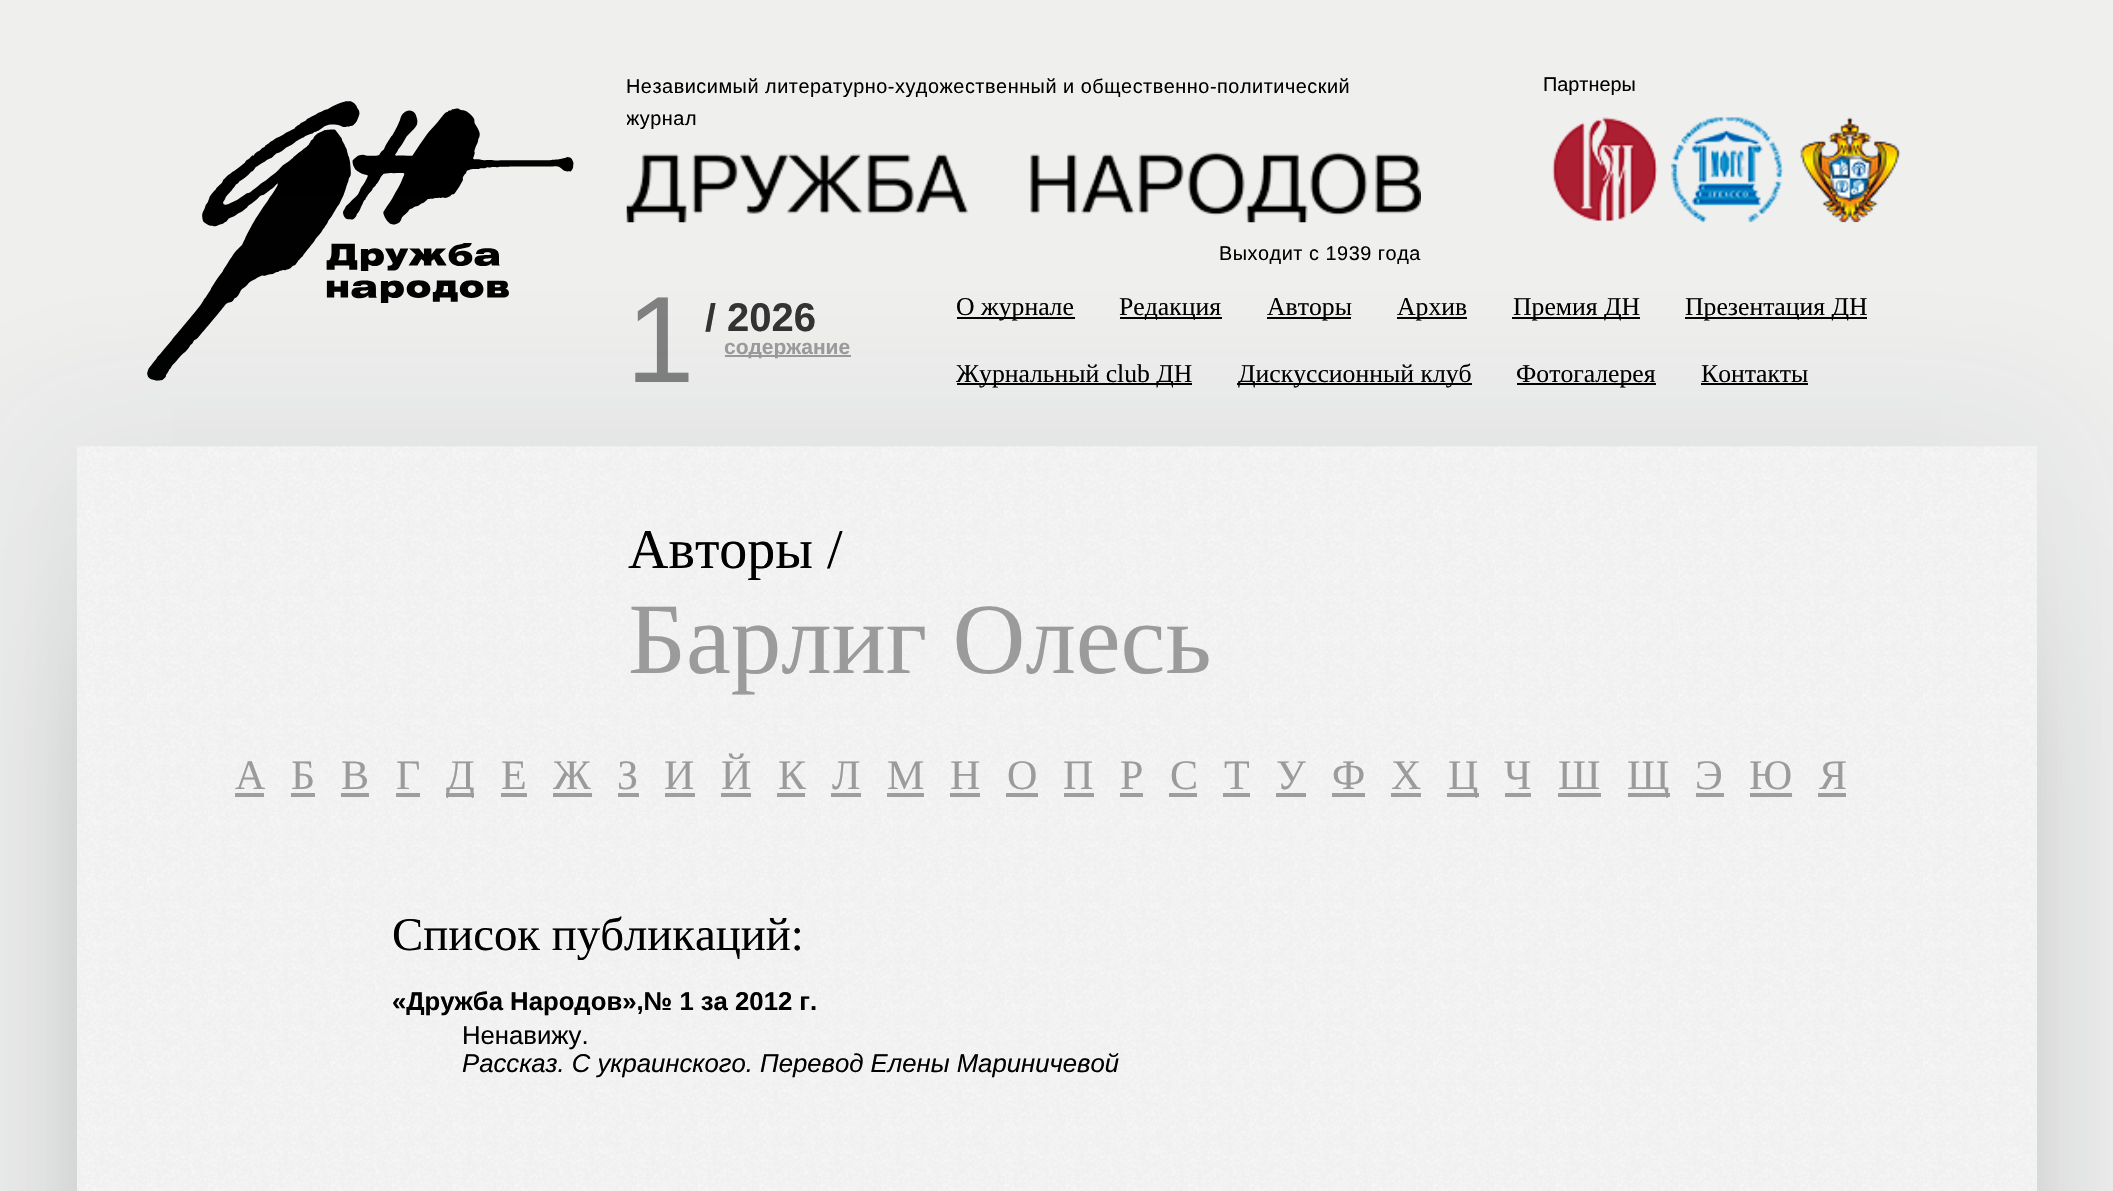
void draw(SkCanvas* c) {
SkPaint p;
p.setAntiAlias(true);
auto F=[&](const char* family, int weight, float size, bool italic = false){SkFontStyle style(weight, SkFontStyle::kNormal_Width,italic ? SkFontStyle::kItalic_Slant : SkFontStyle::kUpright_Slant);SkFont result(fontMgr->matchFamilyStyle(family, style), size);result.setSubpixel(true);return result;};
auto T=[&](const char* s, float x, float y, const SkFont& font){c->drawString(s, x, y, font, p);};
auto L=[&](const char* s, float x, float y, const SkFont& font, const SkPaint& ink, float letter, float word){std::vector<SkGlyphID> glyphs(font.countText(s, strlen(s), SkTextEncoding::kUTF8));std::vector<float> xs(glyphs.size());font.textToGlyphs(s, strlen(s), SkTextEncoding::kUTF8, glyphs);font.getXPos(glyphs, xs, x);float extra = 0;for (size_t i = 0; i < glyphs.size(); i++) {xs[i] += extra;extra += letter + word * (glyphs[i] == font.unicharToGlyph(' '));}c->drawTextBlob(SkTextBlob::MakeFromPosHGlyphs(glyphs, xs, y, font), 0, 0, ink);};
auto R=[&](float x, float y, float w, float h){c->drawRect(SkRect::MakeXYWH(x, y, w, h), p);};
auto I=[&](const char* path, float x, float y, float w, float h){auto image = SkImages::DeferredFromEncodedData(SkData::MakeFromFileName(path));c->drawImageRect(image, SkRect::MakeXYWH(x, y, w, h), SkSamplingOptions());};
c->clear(0xffefefee);
I("1.png",147,101,427,280);
auto f1 = F("Liberation Sans",400,19.85);
p.setColor(0xff000000);
L("Независимый литературно-художественный и общественно-политический",626,93,f1,p,.53,0);
c->save();
c->clipRect(SkRect::MakeXYWH(627,70,794,200));
L("журнал",626,125,f1,p,.53,0);
c->restore();
I("2.png",626,152,795,71);
L("Выходит с 1939 года",1219,260,f1,p,.53,0);
T("Партнеры",1543,91,f1);
I("3.png",1552,117,106,105);
I("4.png",1671,117,113,106);
I("5.png",1800,117,101,106);
auto f2 = F("Liberation Sans",400,123);
p.setColor(0xff808080);
T("1",626,382,f2);
c->save();
c->clipRect(SkRect::MakeXYWH(695,303,240,30));
auto f3 = F("Liberation Sans",700,40);
p.setColor(0xff333333);
T("/",705,331,f3);
c->restore();
T("2026",727,331,f3);
p.setColor(0xff9b9b9b);
R(725,355,126,2);
auto f4 = F("Liberation Sans",700,21);
T("содержание",724,354,f4);
p.setColor(0xff000000);
R(957,317,118,2);
auto f5 = F("Liberation Serif",400,25.7);
T("О журнале",956,315,f5);
R(1120,317,102,2);
T("Редакция",1119,315,f5);
R(1267,317,84,2);
T("Авторы",1267,315,f5);
R(1397,317,70,2);
T("Архив",1397,315,f5);
R(1512,317,128,2);
T("Премия ДН",1513,315,f5);
R(1685,317,182,2);
T("Презентация ДН",1685,315,f5);
R(957,383,235,2);
T("Журнальный club ДН",956,382,f5);
R(1237,383,235,2);
T("Дискуссионный клуб",1238,382,f5);
R(1517,383,139,2);
T("Фотогалерея",1516,382,f5);
T("Контакты",1701,382,f5);
R(1701,383,107,2);
p.setColor(0x12163940);
p.setMaskFilter(SkMaskFilter::MakeBlur(kNormal_SkBlurStyle, 71.5));
c->drawRect(SkRect::MakeXYWH(14,408,2055,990),p);
p.setMaskFilter(nullptr);
p.setColor(0x80000000);
p.setMaskFilter(SkMaskFilter::MakeBlur(kNormal_SkBlurStyle, 79));
c->drawRect(SkRect::MakeXYWH(173,644,1768,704),p);
p.setMaskFilter(nullptr);
I("6.png",77,446,1960,745);
auto f6 = F("Liberation Serif",400,56);
p.setColor(0xff000000);
T("Авторы /",628,568,f6);
auto f7 = F("Liberation Serif",400,101);
p.setColor(0xff9b9b9b);
T("Барлиг Олесь",628,673,f7);
auto f8 = F("Liberation Serif",400,42);
T("A",235,789,f8);
p.setColor(0xff9e9e9e);
R(235,793,29,4);
p.setColor(0xff9b9b9b);
T("Б",291,789,f8);
p.setColor(0xff9e9e9e);
R(291,793,24,4);
p.setColor(0xff9b9b9b);
T("В",341,789,f8);
p.setColor(0xff9e9e9e);
R(341,793,28,4);
p.setColor(0xff9b9b9b);
T("Г",396,789,f8);
p.setColor(0xff9e9e9e);
R(396,793,24,4);
R(446,793,28,4);
p.setColor(0xff9b9b9b);
T("Д",446,789,f8);
T("Е",501,789,f8);
p.setColor(0xff9e9e9e);
R(501,793,26,4);
p.setColor(0xff9b9b9b);
T("Ж",553,789,f8);
p.setColor(0xff9e9e9e);
R(553,793,39,4);
p.setColor(0xff9b9b9b);
T("З",617,789,f8);
p.setColor(0xff9e9e9e);
R(618,793,21,4);
p.setColor(0xff9b9b9b);
T("И",664,789,f8);
p.setColor(0xff9e9e9e);
R(665,793,30,4);
p.setColor(0xff9b9b9b);
T("Й",721,789,f8);
p.setColor(0xff9e9e9e);
R(721,793,30,4);
p.setColor(0xff9b9b9b);
T("К",778,789,f8);
p.setColor(0xff9e9e9e);
R(777,793,28,4);
p.setColor(0xff9b9b9b);
T("Л",832,789,f8);
p.setColor(0xff9e9e9e);
R(831,793,30,4);
p.setColor(0xff9b9b9b);
T("М",887,789,f8);
p.setColor(0xff9e9e9e);
R(887,793,37,4);
p.setColor(0xff9b9b9b);
T("Н",950,789,f8);
p.setColor(0xff9e9e9e);
R(950,793,30,4);
p.setColor(0xff9b9b9b);
T("О",1007,789,f8);
p.setColor(0xff9e9e9e);
R(1006,793,32,4);
p.setColor(0xff9b9b9b);
T("П",1063,789,f8);
p.setColor(0xff9e9e9e);
R(1064,793,30,4);
p.setColor(0xff9b9b9b);
T("Р",1120,789,f8);
p.setColor(0xff9e9e9e);
R(1120,793,23,4);
p.setColor(0xff9b9b9b);
T("С",1170,789,f8);
p.setColor(0xff9e9e9e);
R(1169,793,28,4);
p.setColor(0xff9b9b9b);
T("Т",1224,789,f8);
p.setColor(0xff9e9e9e);
R(1223,793,27,4);
p.setColor(0xff9b9b9b);
T("У",1276,789,f8);
p.setColor(0xff9e9e9e);
R(1276,793,30,4);
p.setColor(0xff9b9b9b);
T("Ф",1332,789,f8);
p.setColor(0xff9e9e9e);
R(1332,793,33,4);
p.setColor(0xff9b9b9b);
T("Х",1391,789,f8);
p.setColor(0xff9e9e9e);
R(1391,793,30,4);
R(1447,793,32,4);
p.setColor(0xff9b9b9b);
T("Ц",1448,789,f8);
T("Ч",1504,789,f8);
p.setColor(0xff9e9e9e);
R(1505,793,26,4);
p.setColor(0xff9b9b9b);
T("Ш",1558,789,f8);
p.setColor(0xff9e9e9e);
R(1558,793,43,4);
R(1628,793,42,4);
p.setColor(0xff9b9b9b);
T("Щ",1627,789,f8);
T("Э",1695,789,f8);
p.setColor(0xff9e9e9e);
R(1696,793,28,4);
p.setColor(0xff9b9b9b);
T("Ю",1749,789,f8);
p.setColor(0xff9e9e9e);
R(1750,793,42,4);
p.setColor(0xff9b9b9b);
T("Я",1819,789,f8);
p.setColor(0xff9e9e9e);
R(1818,793,28,4);
auto f9 = F("Liberation Serif",400,46.75);
p.setColor(0xff000000);
T("Список публикаций:",392,950,f9);
auto f10 = F("Liberation Sans",700,25.7);
T("«Дружба Народов»,№ 1 за 2012 г.",392,1010,f10);
auto f11 = F("Liberation Sans",400,25.7);
T("Ненавижу.",462,1044,f11);
auto f12 = F("Liberation Sans",400,25.7,true);
T("Рассказ. С украинского. Перевод Елены Мариничевой",462,1072,f12);
}
